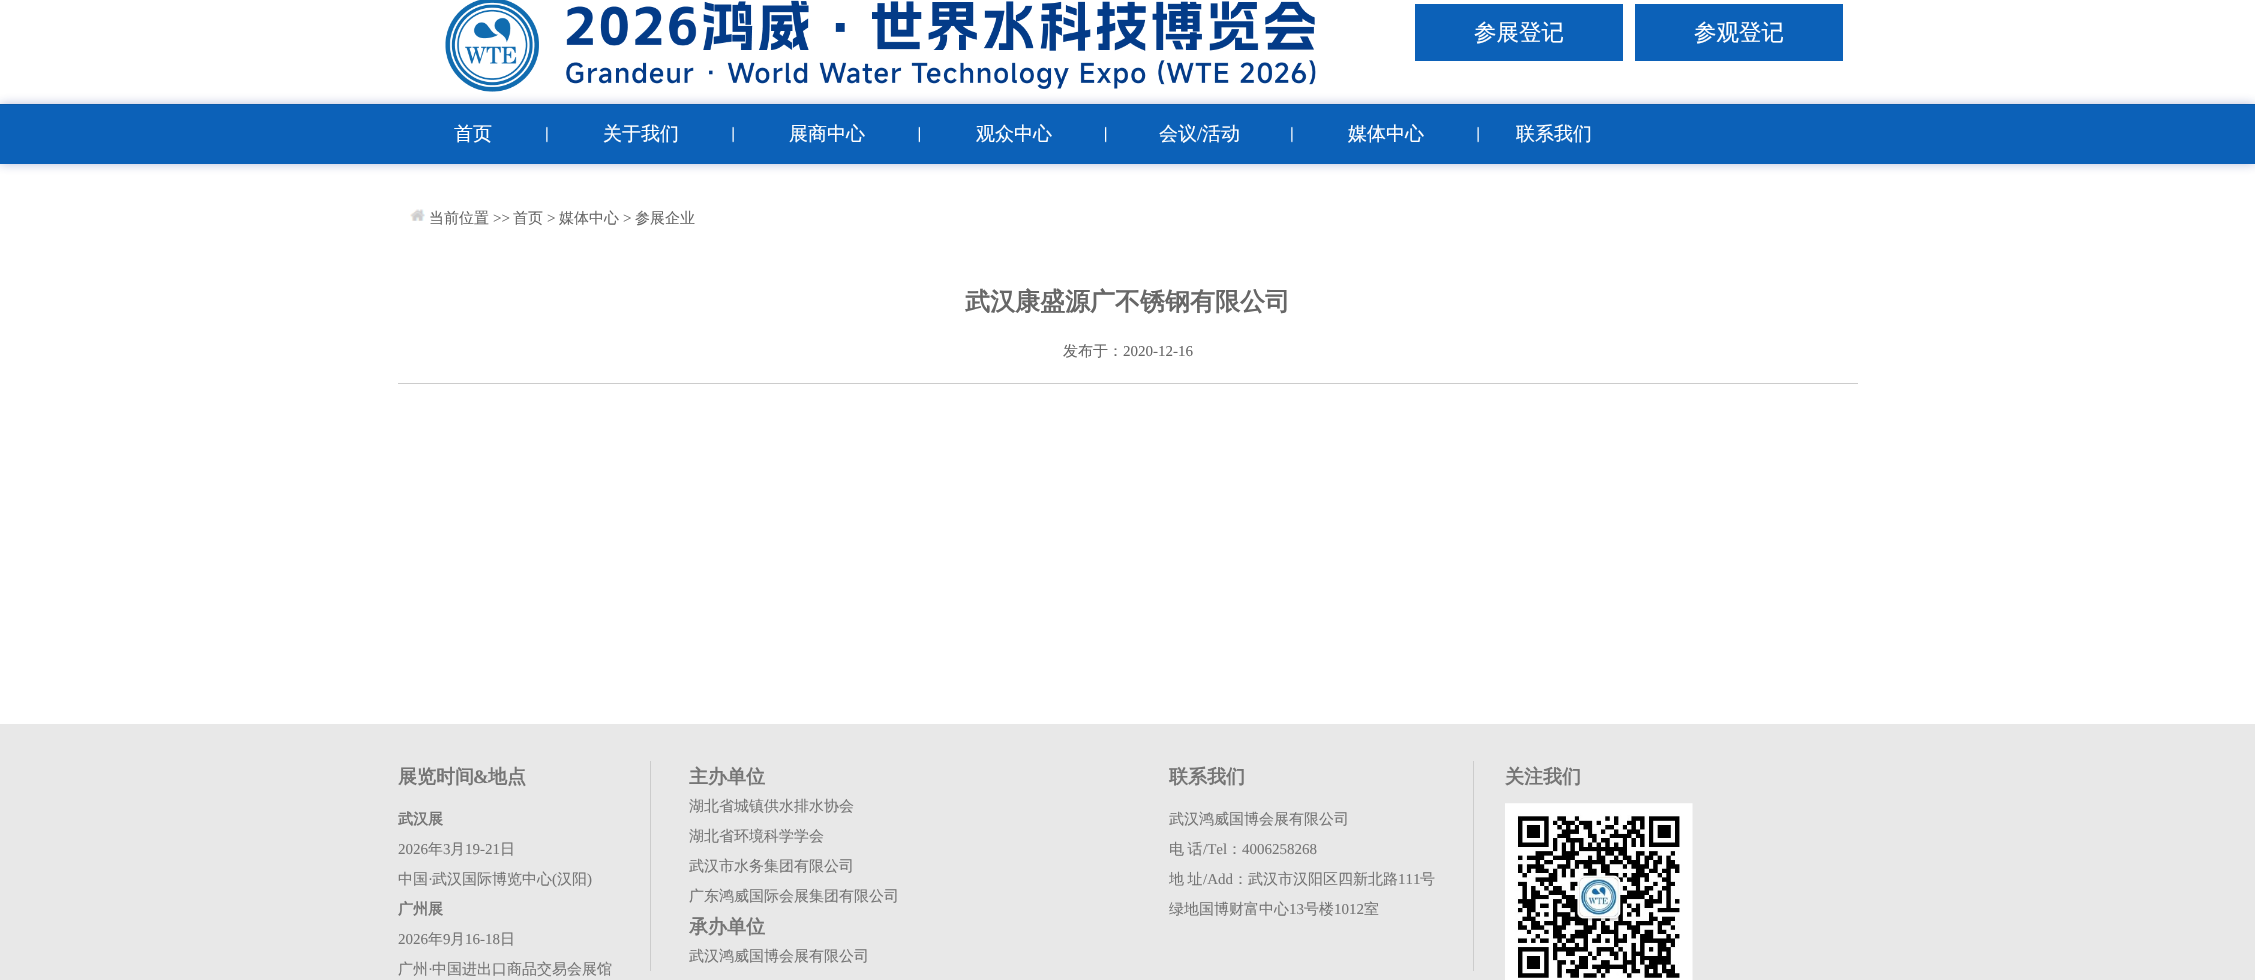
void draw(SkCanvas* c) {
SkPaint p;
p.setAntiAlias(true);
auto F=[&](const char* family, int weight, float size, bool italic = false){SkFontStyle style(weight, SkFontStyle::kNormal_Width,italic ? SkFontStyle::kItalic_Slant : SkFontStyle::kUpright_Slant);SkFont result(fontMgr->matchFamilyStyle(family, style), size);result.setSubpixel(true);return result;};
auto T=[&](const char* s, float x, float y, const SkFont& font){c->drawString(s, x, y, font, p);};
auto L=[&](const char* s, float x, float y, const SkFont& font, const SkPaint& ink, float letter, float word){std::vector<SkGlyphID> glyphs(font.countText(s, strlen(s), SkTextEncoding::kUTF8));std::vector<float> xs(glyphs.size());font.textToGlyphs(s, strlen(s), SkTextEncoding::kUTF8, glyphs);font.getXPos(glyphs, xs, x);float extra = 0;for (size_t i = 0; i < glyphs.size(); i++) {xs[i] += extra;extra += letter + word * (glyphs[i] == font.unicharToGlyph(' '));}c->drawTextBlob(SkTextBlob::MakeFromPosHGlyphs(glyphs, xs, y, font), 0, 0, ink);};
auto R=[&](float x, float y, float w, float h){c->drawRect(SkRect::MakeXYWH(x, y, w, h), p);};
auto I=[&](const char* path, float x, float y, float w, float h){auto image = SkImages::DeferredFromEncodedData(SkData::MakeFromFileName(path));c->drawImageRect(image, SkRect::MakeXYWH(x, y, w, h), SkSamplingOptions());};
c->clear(0xffffffff);
I("1.png",445,0,871,92);
p.setColor(0xff0c61b8);
R(1415,4,208,57);
auto f1 = F("WenQuanYi Zen Hei",500,22.5);
p.setColor(0xffffffff);
T("参展登记",1474,40,f1);
p.setColor(0xff0c61b8);
R(1635,4,208,57);
p.setColor(0xffffffff);
T("参观登记",1694,40,f1);
p.setColor(0x4d172b88);
p.setMaskFilter(SkMaskFilter::MakeBlur(kNormal_SkBlurStyle, 5));
c->drawRect(SkRect::MakeXYWH(0,104,2255,60),p);
p.setMaskFilter(nullptr);
p.setColor(0xff0c61b8);
R(0,105,2255,59);
p.setColor(0xff0b5aaa);
R(0,104,2255,1);
I("2.png",546,126,2,17);
auto f2 = F("WenQuanYi Zen Hei",500,19);
p.setColor(0xffffffff);
T("首页",454,140,f2);
I("3.png",732,126,2,17);
T("关于我们",603,140,f2);
I("4.png",918,126,2,17);
T("展商中心",789,140,f2);
I("5.png",1105,126,2,17);
T("观众中心",976,140,f2);
I("2.png",1291,126,2,17);
T("会议",1159,140,f2);
auto f3 = F("Liberation Serif",400,19);
T("/",1197,140,f3);
T("活动",1202,140,f2);
I("3.png",1477,126,2,17);
T("媒体中心",1348,140,f2);
T("联系我们",1516,140,f2);
I("6.png",410,209,15,12);
auto f4 = F("WenQuanYi Zen Hei",500,15);
p.setColor(0xff676767);
T("当前位置",429,223,f4);
auto f5 = F("Liberation Serif",400,15);
T(">>",493,223,f5);
T("首页",513,223,f4);
T(">",547,223,f5);
T("媒体中心",559,223,f4);
T(">",623,223,f5);
T("参展企业",635,223,f4);
p.setColor(0xffcccccc);
R(398,383,1460,1);
auto f6 = F("WenQuanYi Zen Hei",700,25);
p.setColor(0xff676767);
T("武汉康盛源广不锈钢有限公司",965,310,f6);
T("发布于：",1063,356,f4);
T("2020-12-16",1123,356,f5);
p.setColor(0xffe8e8e8);
R(0,724,2255,256);
auto f7 = F("WenQuanYi Zen Hei",700,19);
p.setColor(0xff757575);
T("展览时间",398,783,f7);
auto f8 = F("Liberation Serif",700,19);
T("&",473,783,f8);
T("地点",488,783,f7);
auto f9 = F("WenQuanYi Zen Hei",700,15);
T("武汉展",398,824,f9);
T("2026",398,854,f5);
T("年",428,854,f4);
T("3",443,854,f5);
T("月",450,854,f4);
T("19-21",465,854,f5);
T("日",500,854,f4);
T("中国",398,884,f4);
T("·",428,884,f5);
T("武汉国际博览中心",432,884,f4);
T("(",552,884,f5);
T("汉阳",557,884,f4);
T(")",587,884,f5);
T("广州展",398,914,f9);
T("2026",398,944,f5);
T("年",428,944,f4);
T("9",443,944,f5);
T("月",450,944,f4);
T("16-18",465,944,f5);
T("日",500,944,f4);
T("广州",398,974,f4);
T("·",428,974,f5);
T("中国进出口商品交易会展馆",432,974,f4);
p.setColor(0xffcccccc);
R(1473,761,1,210);
R(650,761,1,210);
p.setColor(0xff757575);
T("主办单位",689,783,f7);
T("湖北省城镇供水排水协会",689,811,f4);
T("湖北省环境科学学会",689,841,f4);
T("武汉市水务集团有限公司",689,871,f4);
T("广东鸿威国际会展集团有限公司",689,901,f4);
T("承办单位",689,933,f7);
T("武汉鸿威国博会展有限公司",689,961,f4);
T("联系我们",1169,783,f7);
T("武汉鸿威国博会展有限公司",1169,824,f4);
L("电 话",1169,854,f4,p,0,-1);
T("/Tel",1203,854,f5);
T("：",1227,854,f4);
T("4006258268",1242,854,f5);
L("地 址",1169,884,f4,p,0,-1);
T("/Add",1203,884,f5);
T("：武汉市汉阳区四新北路",1233,884,f4);
T("111",1398,884,f5);
T("号",1420,884,f4);
T("绿地国博财富中心",1169,914,f4);
T("13",1289,914,f5);
T("号楼",1304,914,f4);
T("1012",1334,914,f5);
T("室",1364,914,f4);
T("关注我们",1505,783,f7);
I("7.png",1505,803,188,177);
}
